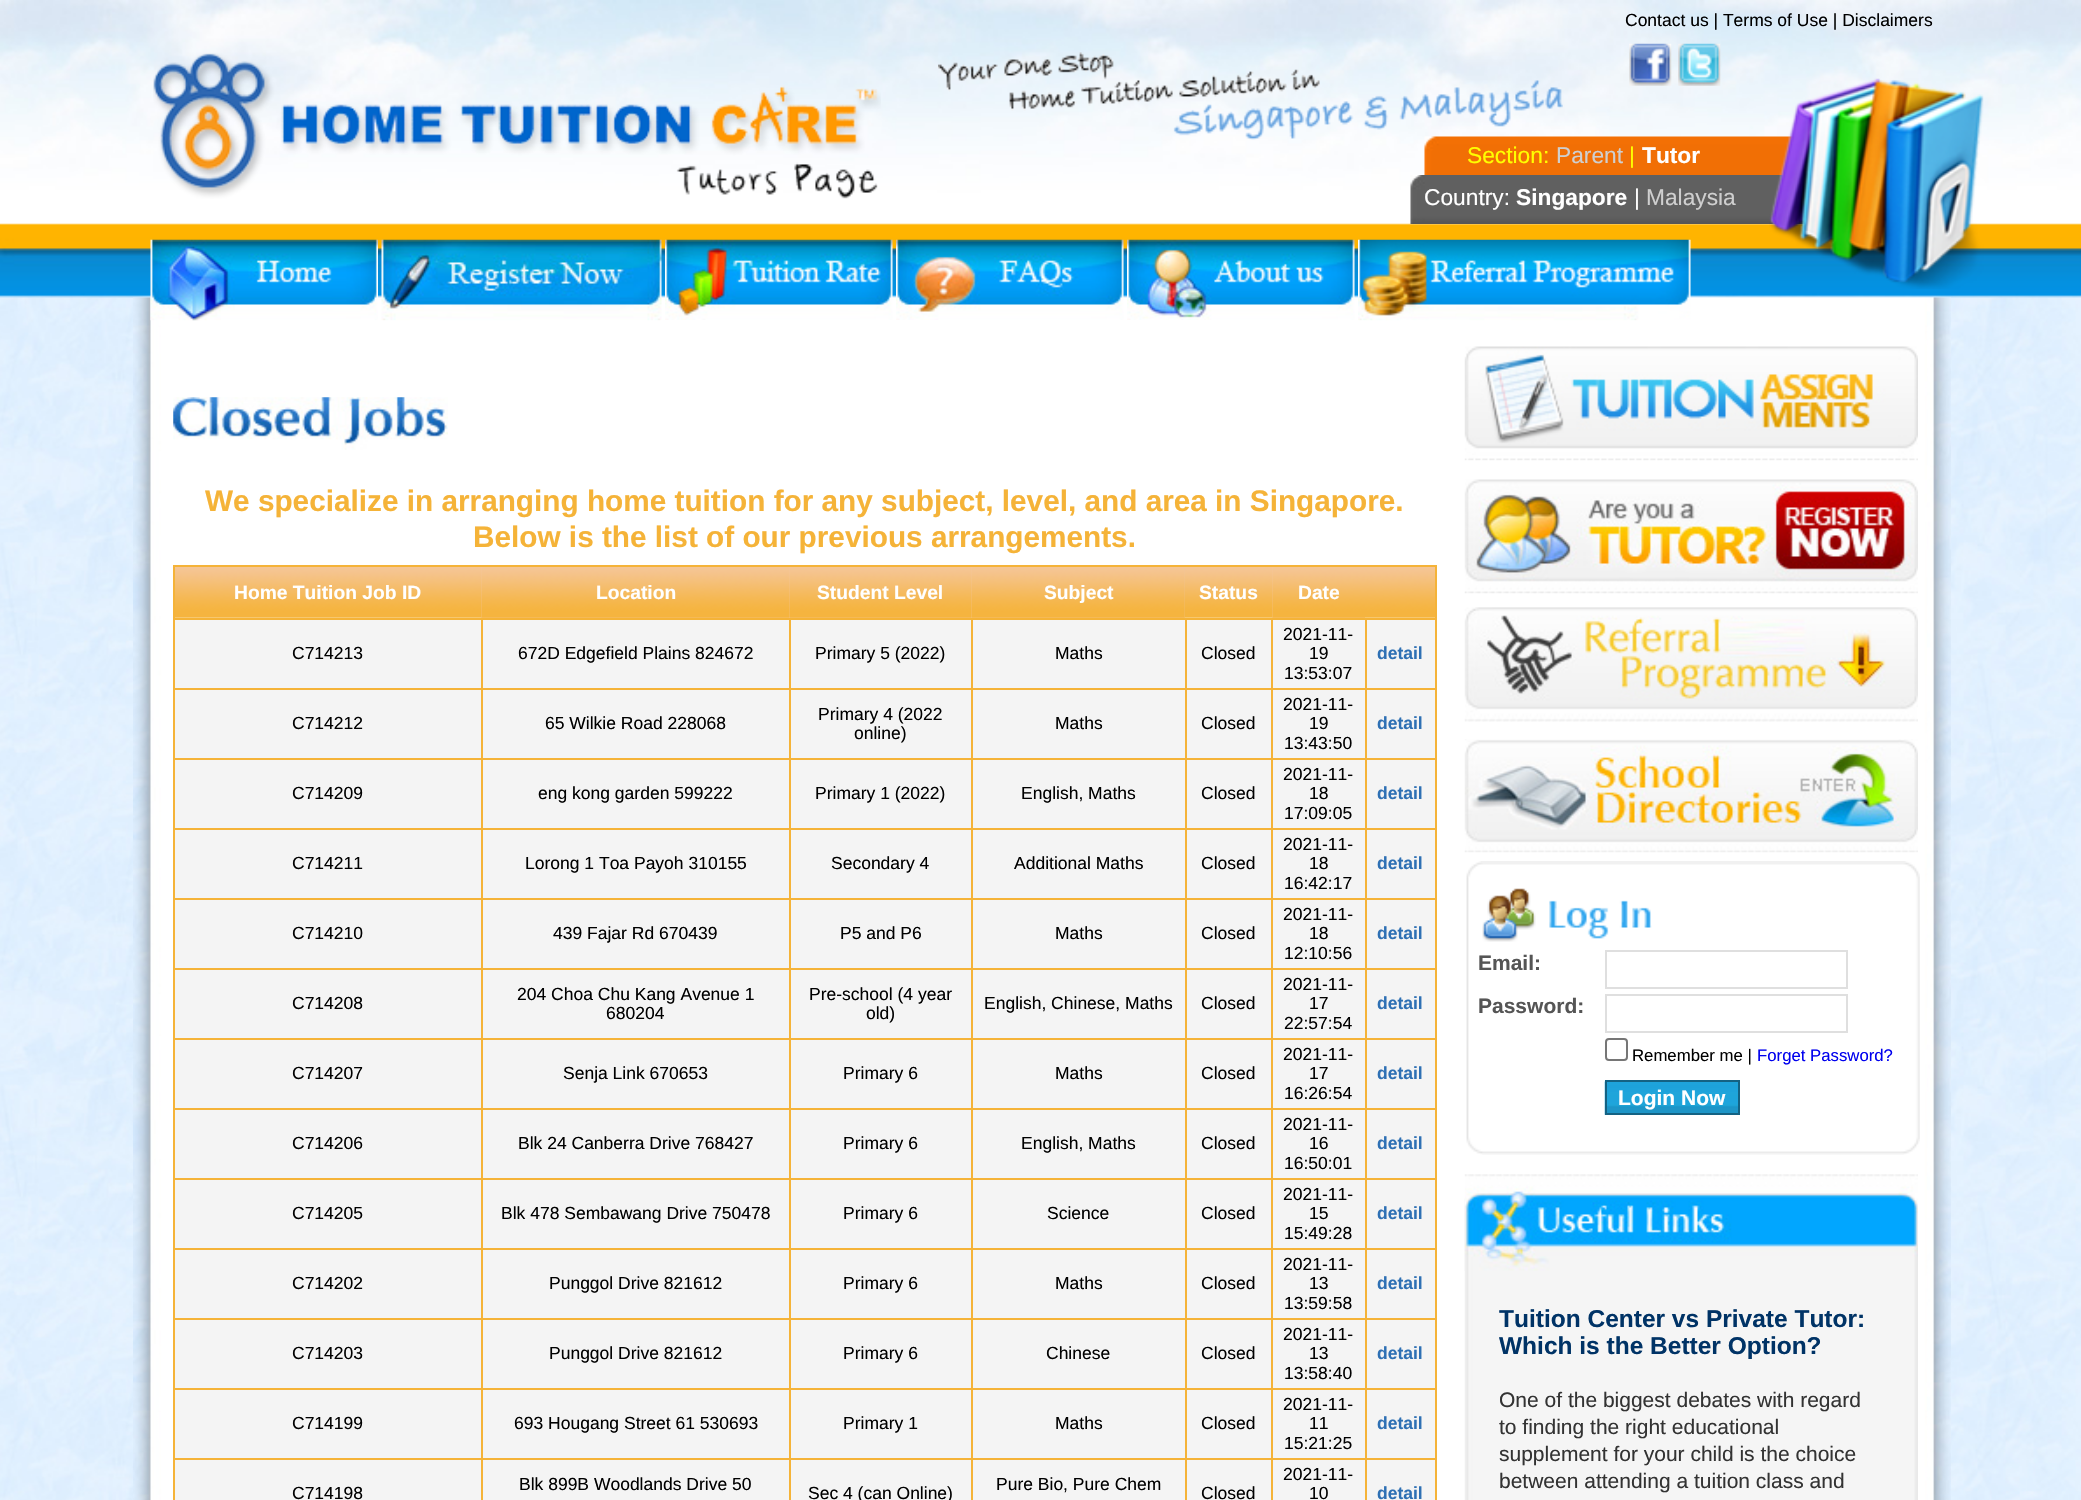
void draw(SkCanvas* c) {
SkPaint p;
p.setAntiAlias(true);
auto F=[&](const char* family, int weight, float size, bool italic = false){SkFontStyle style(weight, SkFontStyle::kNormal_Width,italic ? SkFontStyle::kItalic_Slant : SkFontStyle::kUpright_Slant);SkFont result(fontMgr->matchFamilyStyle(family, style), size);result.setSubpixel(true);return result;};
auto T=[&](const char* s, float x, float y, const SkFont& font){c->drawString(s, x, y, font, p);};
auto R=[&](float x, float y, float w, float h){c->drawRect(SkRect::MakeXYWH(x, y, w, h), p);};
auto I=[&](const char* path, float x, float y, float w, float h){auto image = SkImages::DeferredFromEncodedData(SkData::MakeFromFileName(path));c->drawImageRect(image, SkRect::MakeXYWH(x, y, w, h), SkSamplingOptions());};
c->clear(0xffffffff);
I("1.png",0,297,2081,1203);
I("2.png",0,0,2081,298);
auto f1 = F("Liberation Sans",400,17.5);
p.setColor(0xff000000);
T("Contact us | Terms of Use | Disclaimers",1625,26,f1);
I("3.png",153,53,728,146);
I("4.png",938,52,625,88);
I("5.png",1629,43,43,43);
I("6.png",1678,43,43,43);
I("7.png",1410,175,395,49);
I("8.png",1424,136,369,39);
auto f2 = F("Liberation Sans",400,22.75);
p.setColor(0xffffff00);
T("Section:",1467,163,f2);
p.setColor(0xffcfcfcf);
T("Parent",1556,163,f2);
p.setColor(0xffffff00);
T("|",1629,163,f2);
auto f3 = F("Liberation Sans",700,22.75);
p.setColor(0xffffffff);
T("Tutor",1642,163,f3);
I("9.png",1769,78,215,211);
T("Country:",1424,205,f2);
T("Singapore",1516,205,f3);
T("|",1634,205,f2);
p.setColor(0xffcfcfcf);
T("Malaysia",1646,205,f2);
I("16.png",133,297,1818,1203);
I("10.png",150,239,228,82);
I("11.png",381,239,281,82);
I("12.png",665,239,228,81);
I("13.png",896,239,228,81);
I("14.png",1127,239,228,81);
I("15.png",1358,239,333,82);
I("17.png",173,397,275,53);
auto f4 = F("Liberation Sans",700,29.75);
p.setColor(0xfff5b338);
T("We specialize in arranging home tuition for any subject, level, and area in Singapore.",205,511,f4);
T("Below is the list of our previous arrangements.",473,547,f4);
R(173,565,1264,2);
R(1435,565,2,935);
R(173,565,2,935);
I("18.png",175,567,306,51);
auto f5 = F("Liberation Sans",700,19.25);
p.setColor(0xffffffff);
T("Home Tuition Job ID",234,599,f5);
p.setColor(0xfff5c79e);
R(481,567,704,51);
I("19.png",481,567,308,51);
p.setColor(0xffffffff);
T("Location",596,599,f5);
I("20.png",789,567,182,51);
T("Student Level",817,599,f5);
I("21.png",971,567,214,51);
T("Subject",1044,599,f5);
I("22.png",1184,567,88,51);
T("Status",1199,599,f5);
p.setColor(0xfff5c79e);
R(1272,567,93,51);
I("23.png",1272,567,93,51);
p.setColor(0xffffffff);
T("Date",1298,599,f5);
I("24.png",1365,567,70,51);
p.setColor(0xfff5b338);
R(173,618,1264,2);
p.setColor(0xfff4f4f4);
R(175,620,306,68);
p.setColor(0xff000000);
T("C714213",292,659,f1);
p.setColor(0xfff4f4f4);
R(483,620,306,68);
p.setColor(0xff000000);
T("672D Edgefield Plains 824672",518,659,f1);
p.setColor(0xfff4f4f4);
R(791,620,180,68);
p.setColor(0xff000000);
T("Primary 5 (2022)",815,659,f1);
p.setColor(0xfff4f4f4);
R(973,620,212,68);
p.setColor(0xff000000);
T("Maths",1055,659,f1);
p.setColor(0xfff4f4f4);
R(1187,620,84,68);
p.setColor(0xff000000);
T("Closed",1201,659,f1);
p.setColor(0xfff4f4f4);
R(1273,620,92,68);
p.setColor(0xff000000);
T("2021-11-",1283,640,f1);
T("19",1309,659,f1);
T("13:53:07",1284,679,f1);
p.setColor(0xfff4f4f4);
R(1367,620,68,68);
auto f6 = F("Liberation Sans",700,17.5);
p.setColor(0xff2e70b4);
T("detail",1377,659,f6);
p.setColor(0xfff5b338);
R(173,688,1264,2);
p.setColor(0xfff4f4f4);
R(175,690,306,68);
p.setColor(0xff000000);
T("C714212",292,729,f1);
p.setColor(0xfff4f4f4);
R(483,690,306,68);
p.setColor(0xff000000);
T("65 Wilkie Road 228068",545,729,f1);
p.setColor(0xfff4f4f4);
R(791,690,180,68);
p.setColor(0xff000000);
T("Primary 4 (2022",818,720,f1);
T("online)",854,739,f1);
p.setColor(0xfff4f4f4);
R(973,690,212,68);
p.setColor(0xff000000);
T("Maths",1055,729,f1);
p.setColor(0xfff4f4f4);
R(1187,690,84,68);
p.setColor(0xff000000);
T("Closed",1201,729,f1);
p.setColor(0xfff4f4f4);
R(1273,690,92,68);
p.setColor(0xff000000);
T("2021-11-",1283,710,f1);
T("19",1309,729,f1);
T("13:43:50",1284,749,f1);
p.setColor(0xfff4f4f4);
R(1367,690,68,68);
p.setColor(0xff2e70b4);
T("detail",1377,729,f6);
p.setColor(0xfff5b338);
R(173,758,1264,2);
p.setColor(0xfff4f4f4);
R(175,760,306,68);
p.setColor(0xff000000);
T("C714209",292,799,f1);
p.setColor(0xfff4f4f4);
R(483,760,306,68);
p.setColor(0xff000000);
T("eng kong garden 599222",538,799,f1);
p.setColor(0xfff4f4f4);
R(791,760,180,68);
p.setColor(0xff000000);
T("Primary 1 (2022)",815,799,f1);
p.setColor(0xfff4f4f4);
R(973,760,212,68);
p.setColor(0xff000000);
T("English, Maths",1021,799,f1);
p.setColor(0xfff4f4f4);
R(1187,760,84,68);
p.setColor(0xff000000);
T("Closed",1201,799,f1);
p.setColor(0xfff4f4f4);
R(1273,760,92,68);
p.setColor(0xff000000);
T("2021-11-",1283,780,f1);
T("18",1309,799,f1);
T("17:09:05",1284,819,f1);
p.setColor(0xfff4f4f4);
R(1367,760,68,68);
p.setColor(0xff2e70b4);
T("detail",1377,799,f6);
p.setColor(0xfff5b338);
R(173,828,1264,2);
p.setColor(0xfff4f4f4);
R(175,830,306,68);
p.setColor(0xff000000);
T("C714211",292,869,f1);
p.setColor(0xfff4f4f4);
R(483,830,306,68);
p.setColor(0xff000000);
T("Lorong 1 Toa Payoh 310155",525,869,f1);
p.setColor(0xfff4f4f4);
R(791,830,180,68);
p.setColor(0xff000000);
T("Secondary 4",831,869,f1);
p.setColor(0xfff4f4f4);
R(973,830,212,68);
p.setColor(0xff000000);
T("Additional Maths",1014,869,f1);
p.setColor(0xfff4f4f4);
R(1187,830,84,68);
p.setColor(0xff000000);
T("Closed",1201,869,f1);
p.setColor(0xfff4f4f4);
R(1273,830,92,68);
p.setColor(0xff000000);
T("2021-11-",1283,850,f1);
T("18",1309,869,f1);
T("16:42:17",1284,889,f1);
p.setColor(0xfff4f4f4);
R(1367,830,68,68);
p.setColor(0xff2e70b4);
T("detail",1377,869,f6);
p.setColor(0xfff5b338);
R(173,898,1264,2);
p.setColor(0xfff4f4f4);
R(175,900,306,68);
p.setColor(0xff000000);
T("C714210",292,939,f1);
p.setColor(0xfff4f4f4);
R(483,900,306,68);
p.setColor(0xff000000);
T("439 Fajar Rd 670439",553,939,f1);
p.setColor(0xfff4f4f4);
R(791,900,180,68);
p.setColor(0xff000000);
T("P5 and P6",840,939,f1);
p.setColor(0xfff4f4f4);
R(973,900,212,68);
p.setColor(0xff000000);
T("Maths",1055,939,f1);
p.setColor(0xfff4f4f4);
R(1187,900,84,68);
p.setColor(0xff000000);
T("Closed",1201,939,f1);
p.setColor(0xfff4f4f4);
R(1273,900,92,68);
p.setColor(0xff000000);
T("2021-11-",1283,920,f1);
T("18",1309,939,f1);
T("12:10:56",1284,959,f1);
p.setColor(0xfff4f4f4);
R(1367,900,68,68);
p.setColor(0xff2e70b4);
T("detail",1377,939,f6);
p.setColor(0xfff5b338);
R(173,968,1264,2);
p.setColor(0xfff4f4f4);
R(175,970,306,68);
p.setColor(0xff000000);
T("C714208",292,1009,f1);
p.setColor(0xfff4f4f4);
R(483,970,306,68);
p.setColor(0xff000000);
T("204 Choa Chu Kang Avenue 1",517,1000,f1);
T("680204",606,1019,f1);
p.setColor(0xfff4f4f4);
R(791,970,180,68);
p.setColor(0xff000000);
T("Pre-school (4 year",809,1000,f1);
T("old)",866,1019,f1);
p.setColor(0xfff4f4f4);
R(973,970,212,68);
p.setColor(0xff000000);
T("English, Chinese, Maths",984,1009,f1);
p.setColor(0xfff4f4f4);
R(1187,970,84,68);
p.setColor(0xff000000);
T("Closed",1201,1009,f1);
p.setColor(0xfff4f4f4);
R(1273,970,92,68);
p.setColor(0xff000000);
T("2021-11-",1283,990,f1);
T("17",1309,1009,f1);
T("22:57:54",1284,1029,f1);
p.setColor(0xfff4f4f4);
R(1367,970,68,68);
p.setColor(0xff2e70b4);
T("detail",1377,1009,f6);
p.setColor(0xfff5b338);
R(173,1038,1264,2);
p.setColor(0xfff4f4f4);
R(175,1040,306,68);
p.setColor(0xff000000);
T("C714207",292,1079,f1);
p.setColor(0xfff4f4f4);
R(483,1040,306,68);
p.setColor(0xff000000);
T("Senja Link 670653",563,1079,f1);
p.setColor(0xfff4f4f4);
R(791,1040,180,68);
p.setColor(0xff000000);
T("Primary 6",843,1079,f1);
p.setColor(0xfff4f4f4);
R(973,1040,212,68);
p.setColor(0xff000000);
T("Maths",1055,1079,f1);
p.setColor(0xfff4f4f4);
R(1187,1040,84,68);
p.setColor(0xff000000);
T("Closed",1201,1079,f1);
p.setColor(0xfff4f4f4);
R(1273,1040,92,68);
p.setColor(0xff000000);
T("2021-11-",1283,1060,f1);
T("17",1309,1079,f1);
T("16:26:54",1284,1099,f1);
p.setColor(0xfff4f4f4);
R(1367,1040,68,68);
p.setColor(0xff2e70b4);
T("detail",1377,1079,f6);
p.setColor(0xfff5b338);
R(173,1108,1264,2);
p.setColor(0xfff4f4f4);
R(175,1110,306,68);
p.setColor(0xff000000);
T("C714206",292,1149,f1);
p.setColor(0xfff4f4f4);
R(483,1110,306,68);
p.setColor(0xff000000);
T("Blk 24 Canberra Drive 768427",518,1149,f1);
p.setColor(0xfff4f4f4);
R(791,1110,180,68);
p.setColor(0xff000000);
T("Primary 6",843,1149,f1);
p.setColor(0xfff4f4f4);
R(973,1110,212,68);
p.setColor(0xff000000);
T("English, Maths",1021,1149,f1);
p.setColor(0xfff4f4f4);
R(1187,1110,84,68);
p.setColor(0xff000000);
T("Closed",1201,1149,f1);
p.setColor(0xfff4f4f4);
R(1273,1110,92,68);
p.setColor(0xff000000);
T("2021-11-",1283,1130,f1);
T("16",1309,1149,f1);
T("16:50:01",1284,1169,f1);
p.setColor(0xfff4f4f4);
R(1367,1110,68,68);
p.setColor(0xff2e70b4);
T("detail",1377,1149,f6);
p.setColor(0xfff5b338);
R(173,1178,1264,2);
p.setColor(0xfff4f4f4);
R(175,1180,306,68);
p.setColor(0xff000000);
T("C714205",292,1219,f1);
p.setColor(0xfff4f4f4);
R(483,1180,306,68);
p.setColor(0xff000000);
T("Blk 478 Sembawang Drive 750478",501,1219,f1);
p.setColor(0xfff4f4f4);
R(791,1180,180,68);
p.setColor(0xff000000);
T("Primary 6",843,1219,f1);
p.setColor(0xfff4f4f4);
R(973,1180,212,68);
p.setColor(0xff000000);
T("Science",1047,1219,f1);
p.setColor(0xfff4f4f4);
R(1187,1180,84,68);
p.setColor(0xff000000);
T("Closed",1201,1219,f1);
p.setColor(0xfff4f4f4);
R(1273,1180,92,68);
p.setColor(0xff000000);
T("2021-11-",1283,1200,f1);
T("15",1309,1219,f1);
T("15:49:28",1284,1239,f1);
p.setColor(0xfff4f4f4);
R(1367,1180,68,68);
p.setColor(0xff2e70b4);
T("detail",1377,1219,f6);
p.setColor(0xfff5b338);
R(173,1248,1264,2);
p.setColor(0xfff4f4f4);
R(175,1250,306,68);
p.setColor(0xff000000);
T("C714202",292,1289,f1);
p.setColor(0xfff4f4f4);
R(483,1250,306,68);
p.setColor(0xff000000);
T("Punggol Drive 821612",549,1289,f1);
p.setColor(0xfff4f4f4);
R(791,1250,180,68);
p.setColor(0xff000000);
T("Primary 6",843,1289,f1);
p.setColor(0xfff4f4f4);
R(973,1250,212,68);
p.setColor(0xff000000);
T("Maths",1055,1289,f1);
p.setColor(0xfff4f4f4);
R(1187,1250,84,68);
p.setColor(0xff000000);
T("Closed",1201,1289,f1);
p.setColor(0xfff4f4f4);
R(1273,1250,92,68);
p.setColor(0xff000000);
T("2021-11-",1283,1270,f1);
T("13",1309,1289,f1);
T("13:59:58",1284,1309,f1);
p.setColor(0xfff4f4f4);
R(1367,1250,68,68);
p.setColor(0xff2e70b4);
T("detail",1377,1289,f6);
p.setColor(0xfff5b338);
R(173,1318,1264,2);
p.setColor(0xfff4f4f4);
R(175,1320,306,68);
p.setColor(0xff000000);
T("C714203",292,1359,f1);
p.setColor(0xfff4f4f4);
R(483,1320,306,68);
p.setColor(0xff000000);
T("Punggol Drive 821612",549,1359,f1);
p.setColor(0xfff4f4f4);
R(791,1320,180,68);
p.setColor(0xff000000);
T("Primary 6",843,1359,f1);
p.setColor(0xfff4f4f4);
R(973,1320,212,68);
p.setColor(0xff000000);
T("Chinese",1046,1359,f1);
p.setColor(0xfff4f4f4);
R(1187,1320,84,68);
p.setColor(0xff000000);
T("Closed",1201,1359,f1);
p.setColor(0xfff4f4f4);
R(1273,1320,92,68);
p.setColor(0xff000000);
T("2021-11-",1283,1340,f1);
T("13",1309,1359,f1);
T("13:58:40",1284,1379,f1);
p.setColor(0xfff4f4f4);
R(1367,1320,68,68);
p.setColor(0xff2e70b4);
T("detail",1377,1359,f6);
p.setColor(0xfff5b338);
R(173,1388,1264,2);
p.setColor(0xfff4f4f4);
R(175,1390,306,68);
p.setColor(0xff000000);
T("C714199",292,1429,f1);
p.setColor(0xfff4f4f4);
R(483,1390,306,68);
p.setColor(0xff000000);
T("693 Hougang Street 61 530693",514,1429,f1);
p.setColor(0xfff4f4f4);
R(791,1390,180,68);
p.setColor(0xff000000);
T("Primary 1",843,1429,f1);
p.setColor(0xfff4f4f4);
R(973,1390,212,68);
p.setColor(0xff000000);
T("Maths",1055,1429,f1);
p.setColor(0xfff4f4f4);
R(1187,1390,84,68);
p.setColor(0xff000000);
T("Closed",1201,1429,f1);
p.setColor(0xfff4f4f4);
R(1273,1390,92,68);
p.setColor(0xff000000);
T("2021-11-",1283,1410,f1);
T("11",1309,1429,f1);
T("15:21:25",1284,1449,f1);
p.setColor(0xfff4f4f4);
R(1367,1390,68,68);
p.setColor(0xff2e70b4);
T("detail",1377,1429,f6);
p.setColor(0xfff5b338);
R(173,1458,1264,2);
p.setColor(0xfff4f4f4);
R(175,1460,306,40);
p.setColor(0xff000000);
T("C714198",292,1499,f1);
p.setColor(0xfff4f4f4);
R(483,1460,306,40);
p.setColor(0xfff5b338);
R(481,618,2,882);
p.setColor(0xff000000);
T("Blk 899B Woodlands Drive 50",519,1490,f1);
p.setColor(0xfff4f4f4);
R(791,1460,180,40);
p.setColor(0xfff5b338);
R(789,618,2,882);
p.setColor(0xff000000);
T("Sec 4 (can Online)",808,1499,f1);
p.setColor(0xfff4f4f4);
R(973,1460,212,40);
p.setColor(0xfff5b338);
R(971,618,2,882);
p.setColor(0xff000000);
T("Pure Bio, Pure Chem",996,1490,f1);
p.setColor(0xfff4f4f4);
R(1187,1460,84,40);
p.setColor(0xfff5b338);
R(1185,618,2,882);
p.setColor(0xff000000);
T("Closed",1201,1499,f1);
p.setColor(0xfff4f4f4);
R(1273,1460,92,40);
p.setColor(0xfff5b338);
R(1271,618,2,882);
p.setColor(0xff000000);
T("2021-11-",1283,1480,f1);
T("10",1309,1499,f1);
p.setColor(0xfff4f4f4);
R(1367,1460,68,40);
p.setColor(0xfff5b338);
R(1365,618,2,882);
p.setColor(0xff2e70b4);
T("detail",1377,1499,f6);
I("25.png",1464,346,454,115);
I("26.png",1464,479,454,115);
I("27.png",1464,607,454,115);
I("28.png",1464,739,454,114);
I("29.png",1466,861,454,294);
I("30.png",1482,888,170,54);
auto f7 = F("Liberation Sans",700,21);
p.setColor(0xff555555);
T("Email:",1478,970,f7);
p.setStroke(true);
p.setStrokeWidth(2);
p.setColor(0xffdfdfdf);
c->drawRect(SkRect::MakeXYWH(1606,951,241,37),p);
p.setStroke(false);
p.setColor(0xff555555);
T("Password:",1478,1013,f7);
p.setStroke(true);
p.setColor(0xffdfdfdf);
c->drawRect(SkRect::MakeXYWH(1606,995,241,37),p);
p.setColor(0xff767676);
c->drawRoundRect(SkRect::MakeXYWH(1606,1039,21,21),3,3,p);
auto f8 = F("Liberation Sans",400,16.75);
p.setStroke(false);
p.setColor(0xff000000);
T("Remember me |",1632,1061,f8);
p.setColor(0xff0000ee);
T("Forget Password?",1757,1061,f8);
I("31.png",1604,1081,134,34);
p.setStroke(true);
p.setColor(0xff146283);
c->drawRect(SkRect::MakeXYWH(1606,1081,133,33),p);
p.setStroke(false);
p.setColor(0xffffffff);
T("Login Now",1618,1105,f7);
I("32.png",1464,1198,454,302);
I("33.png",1464,1174,454,97);
auto f9 = F("Liberation Sans",700,24.5);
p.setColor(0xff003366);
T("Tuition Center vs Private Tutor:",1499,1327,f9);
T("Which is the Better Option?",1499,1354,f9);
auto f10 = F("Liberation Sans",400,21);
p.setColor(0xff333333);
T("One of the biggest debates with regard",1499,1407,f10);
T("to finding the right educational",1499,1434,f10);
T("supplement for your child is the choice",1499,1461,f10);
T("between attending a tuition class and",1499,1488,f10);
}
